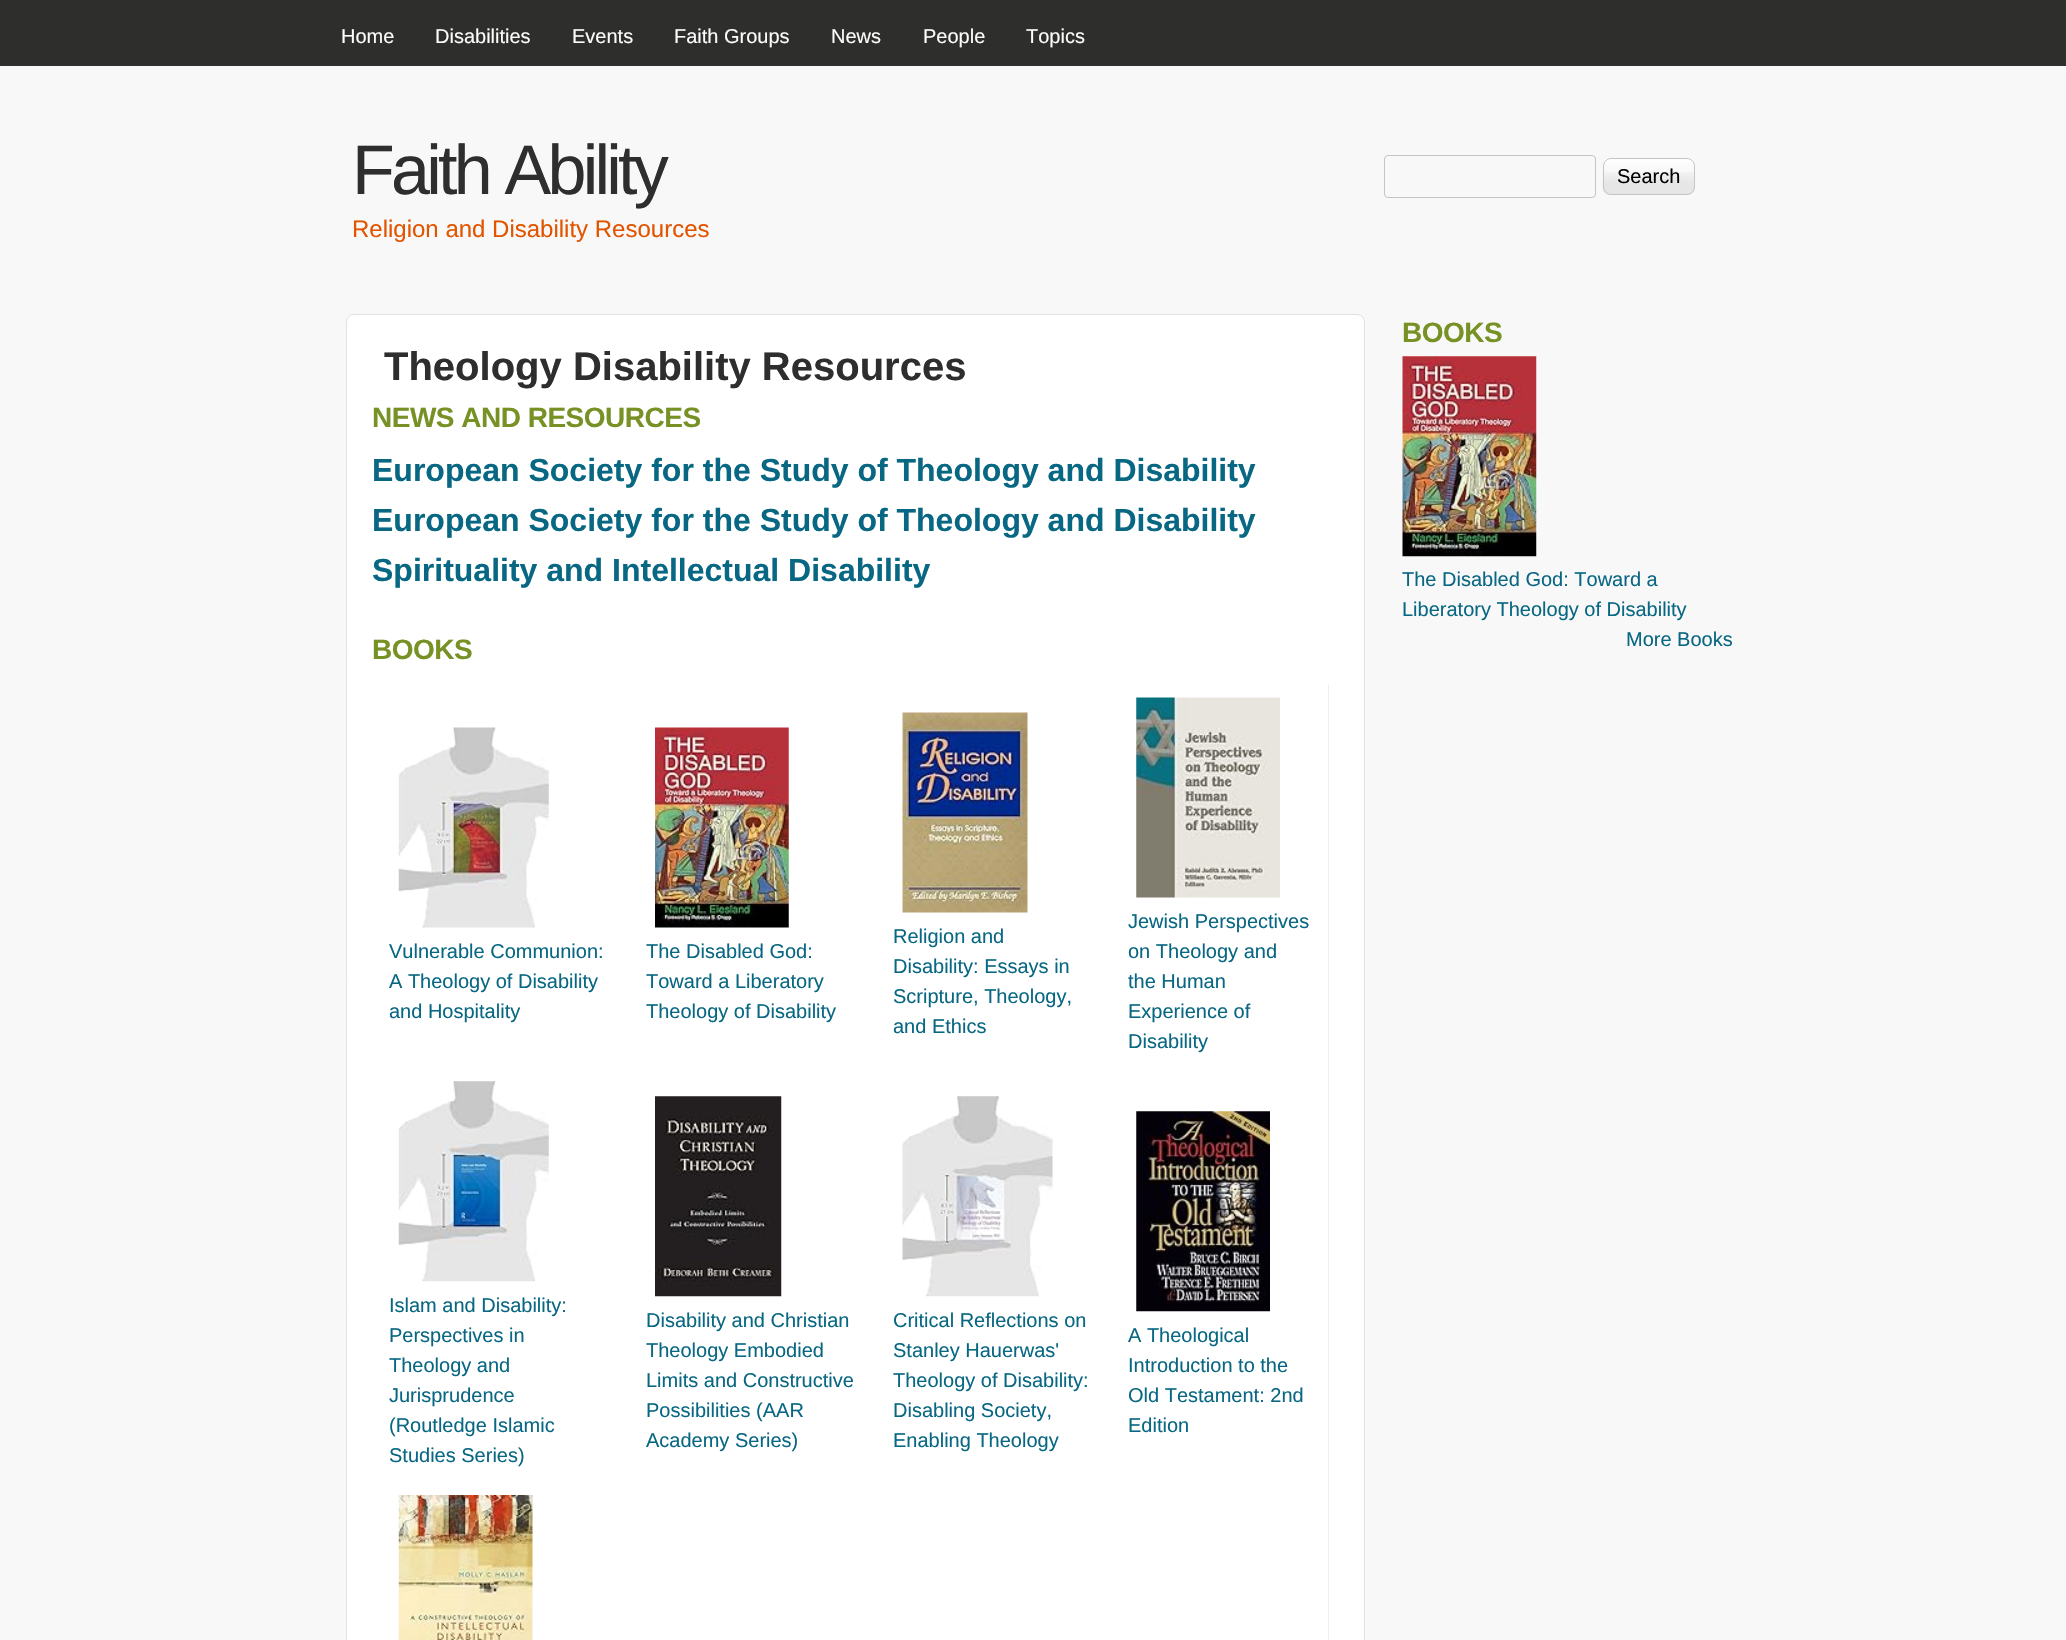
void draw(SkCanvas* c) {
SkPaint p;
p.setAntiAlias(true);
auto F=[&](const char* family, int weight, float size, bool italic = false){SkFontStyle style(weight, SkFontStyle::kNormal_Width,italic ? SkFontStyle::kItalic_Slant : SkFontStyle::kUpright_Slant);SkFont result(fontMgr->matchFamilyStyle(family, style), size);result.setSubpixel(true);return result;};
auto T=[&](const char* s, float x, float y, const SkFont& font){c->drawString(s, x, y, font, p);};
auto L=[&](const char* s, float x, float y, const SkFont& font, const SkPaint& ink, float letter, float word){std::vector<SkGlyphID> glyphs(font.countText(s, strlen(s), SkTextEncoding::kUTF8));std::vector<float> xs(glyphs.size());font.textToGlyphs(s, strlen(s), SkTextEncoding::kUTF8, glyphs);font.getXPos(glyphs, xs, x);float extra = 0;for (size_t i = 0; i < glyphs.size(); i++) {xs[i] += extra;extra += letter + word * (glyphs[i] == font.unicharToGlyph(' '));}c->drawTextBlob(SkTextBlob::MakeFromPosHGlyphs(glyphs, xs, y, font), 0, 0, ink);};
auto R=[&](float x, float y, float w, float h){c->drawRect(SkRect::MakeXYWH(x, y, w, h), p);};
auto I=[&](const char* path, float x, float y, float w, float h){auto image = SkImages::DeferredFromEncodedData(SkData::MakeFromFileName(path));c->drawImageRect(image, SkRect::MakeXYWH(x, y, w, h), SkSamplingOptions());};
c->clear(0xfff8f8f8);
p.setColor(0xff2e2e2d);
R(0,0,2066,66);
auto f1 = F("Liberation Sans",400,20);
p.setColor(0xfffcfcfc);
T("Home",341,43,f1);
T("Disabilities",435,43,f1);
T("Events",572,43,f1);
T("Faith Groups",674,43,f1);
T("News",831,43,f1);
T("People",923,43,f1);
T("Topics",1026,43,f1);
auto f2 = F("Liberation Sans",400,70);
p.setColor(0xff2e2e2e);
L("Faith Ability",352,194,f2,p,-3.75,0);
auto f3 = F("Liberation Sans",400,24);
p.setColor(0xffe25400);
T("Religion and Disability Resources",352,237,f3);
p.setStroke(true);
p.setStrokeWidth(1);
p.setColor(0xffc4c4c4);
c->drawRoundRect(SkRect::MakeXYWH(1384.5,155.5,211,42),3.5,3.5,p);
I("1.png",1602,159,93,36);
c->drawRoundRect(SkRect::MakeXYWH(1603.5,158.5,91,36),7.5,7.5,p);
p.setStroke(false);
p.setColor(0xff000000);
T("Search",1617,183,f1);
p.setColor(0xffffffff);
c->drawRoundRect(SkRect::MakeXYWH(346.5,314.5,1018,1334),7.5,7.5,p);
p.setStroke(true);
p.setColor(0xffe1e1e1);
c->drawRoundRect(SkRect::MakeXYWH(346.5,314.5,1018,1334),7.5,7.5,p);
auto f4 = F("Liberation Sans",700,40);
p.setStroke(false);
p.setColor(0xff2e2e2e);
T("Theology Disability Resources",384,380,f4);
auto f5 = F("Liberation Sans",700,28);
p.setColor(0xff779125);
L("NEWS AND RESOURCES",372,427,f5,p,-.5,0);
auto f6 = F("Liberation Sans",700,32);
p.setColor(0xff086782);
T("European Society for the Study of Theology and Disability",372,481,f6);
T("European Society for the Study of Theology and Disability",372,531,f6);
T("Spirituality and Intellectual Disability",372,581,f6);
p.setColor(0xff779125);
L("BOOKS",372,659,f5,p,-.5,0);
I("2.png",398,1495,135,145);
p.setColor(0xffeeeeee);
R(1328,685,1,955);
I("3.png",398,727,151,201);
p.setColor(0xff086782);
T("Vulnerable Communion:",389,958,f1);
T("A Theology of Disability",389,988,f1);
T("and Hospitality",389,1018,f1);
I("4.png",655,727,134,201);
T("The Disabled God:",646,958,f1);
T("Toward a Liberatory",646,988,f1);
T("Theology of Disability",646,1018,f1);
I("5.png",902,712,126,201);
T("Religion and",893,943,f1);
T("Disability: Essays in",893,973,f1);
T("Scripture, Theology,",893,1003,f1);
T("and Ethics",893,1033,f1);
I("6.png",1136,697,144,201);
T("Jewish Perspectives",1128,928,f1);
T("on Theology and",1128,958,f1);
T("the Human",1128,988,f1);
T("Experience of",1128,1018,f1);
T("Disability",1128,1048,f1);
I("7.png",398,1081,151,201);
T("Islam and Disability:",389,1312,f1);
T("Perspectives in",389,1342,f1);
T("Theology and",389,1372,f1);
T("Jurisprudence",389,1402,f1);
T("(Routledge Islamic",389,1432,f1);
T("Studies Series)",389,1462,f1);
I("8.png",655,1096,127,201);
T("Disability and Christian",646,1327,f1);
T("Theology Embodied",646,1357,f1);
T("Limits and Constructive",646,1387,f1);
T("Possibilities (AAR",646,1417,f1);
T("Academy Series)",646,1447,f1);
I("9.png",902,1096,151,201);
T("Critical Reflections on",893,1327,f1);
T("Stanley Hauerwas'",893,1357,f1);
T("Theology of Disability:",893,1387,f1);
T("Disabling Society,",893,1417,f1);
T("Enabling Theology",893,1447,f1);
I("10.png",1136,1111,134,201);
T("A Theological",1128,1342,f1);
T("Introduction to the",1128,1372,f1);
T("Old Testament: 2nd",1128,1402,f1);
T("Edition",1128,1432,f1);
p.setColor(0xff779125);
L("BOOKS",1402,342,f5,p,-.5,0);
I("11.png",1402,356,135,201);
p.setColor(0xff086782);
T("The Disabled God: Toward a",1402,586,f1);
T("Liberatory Theology of Disability",1402,616,f1);
T("More Books",1626,646,f1);
}
